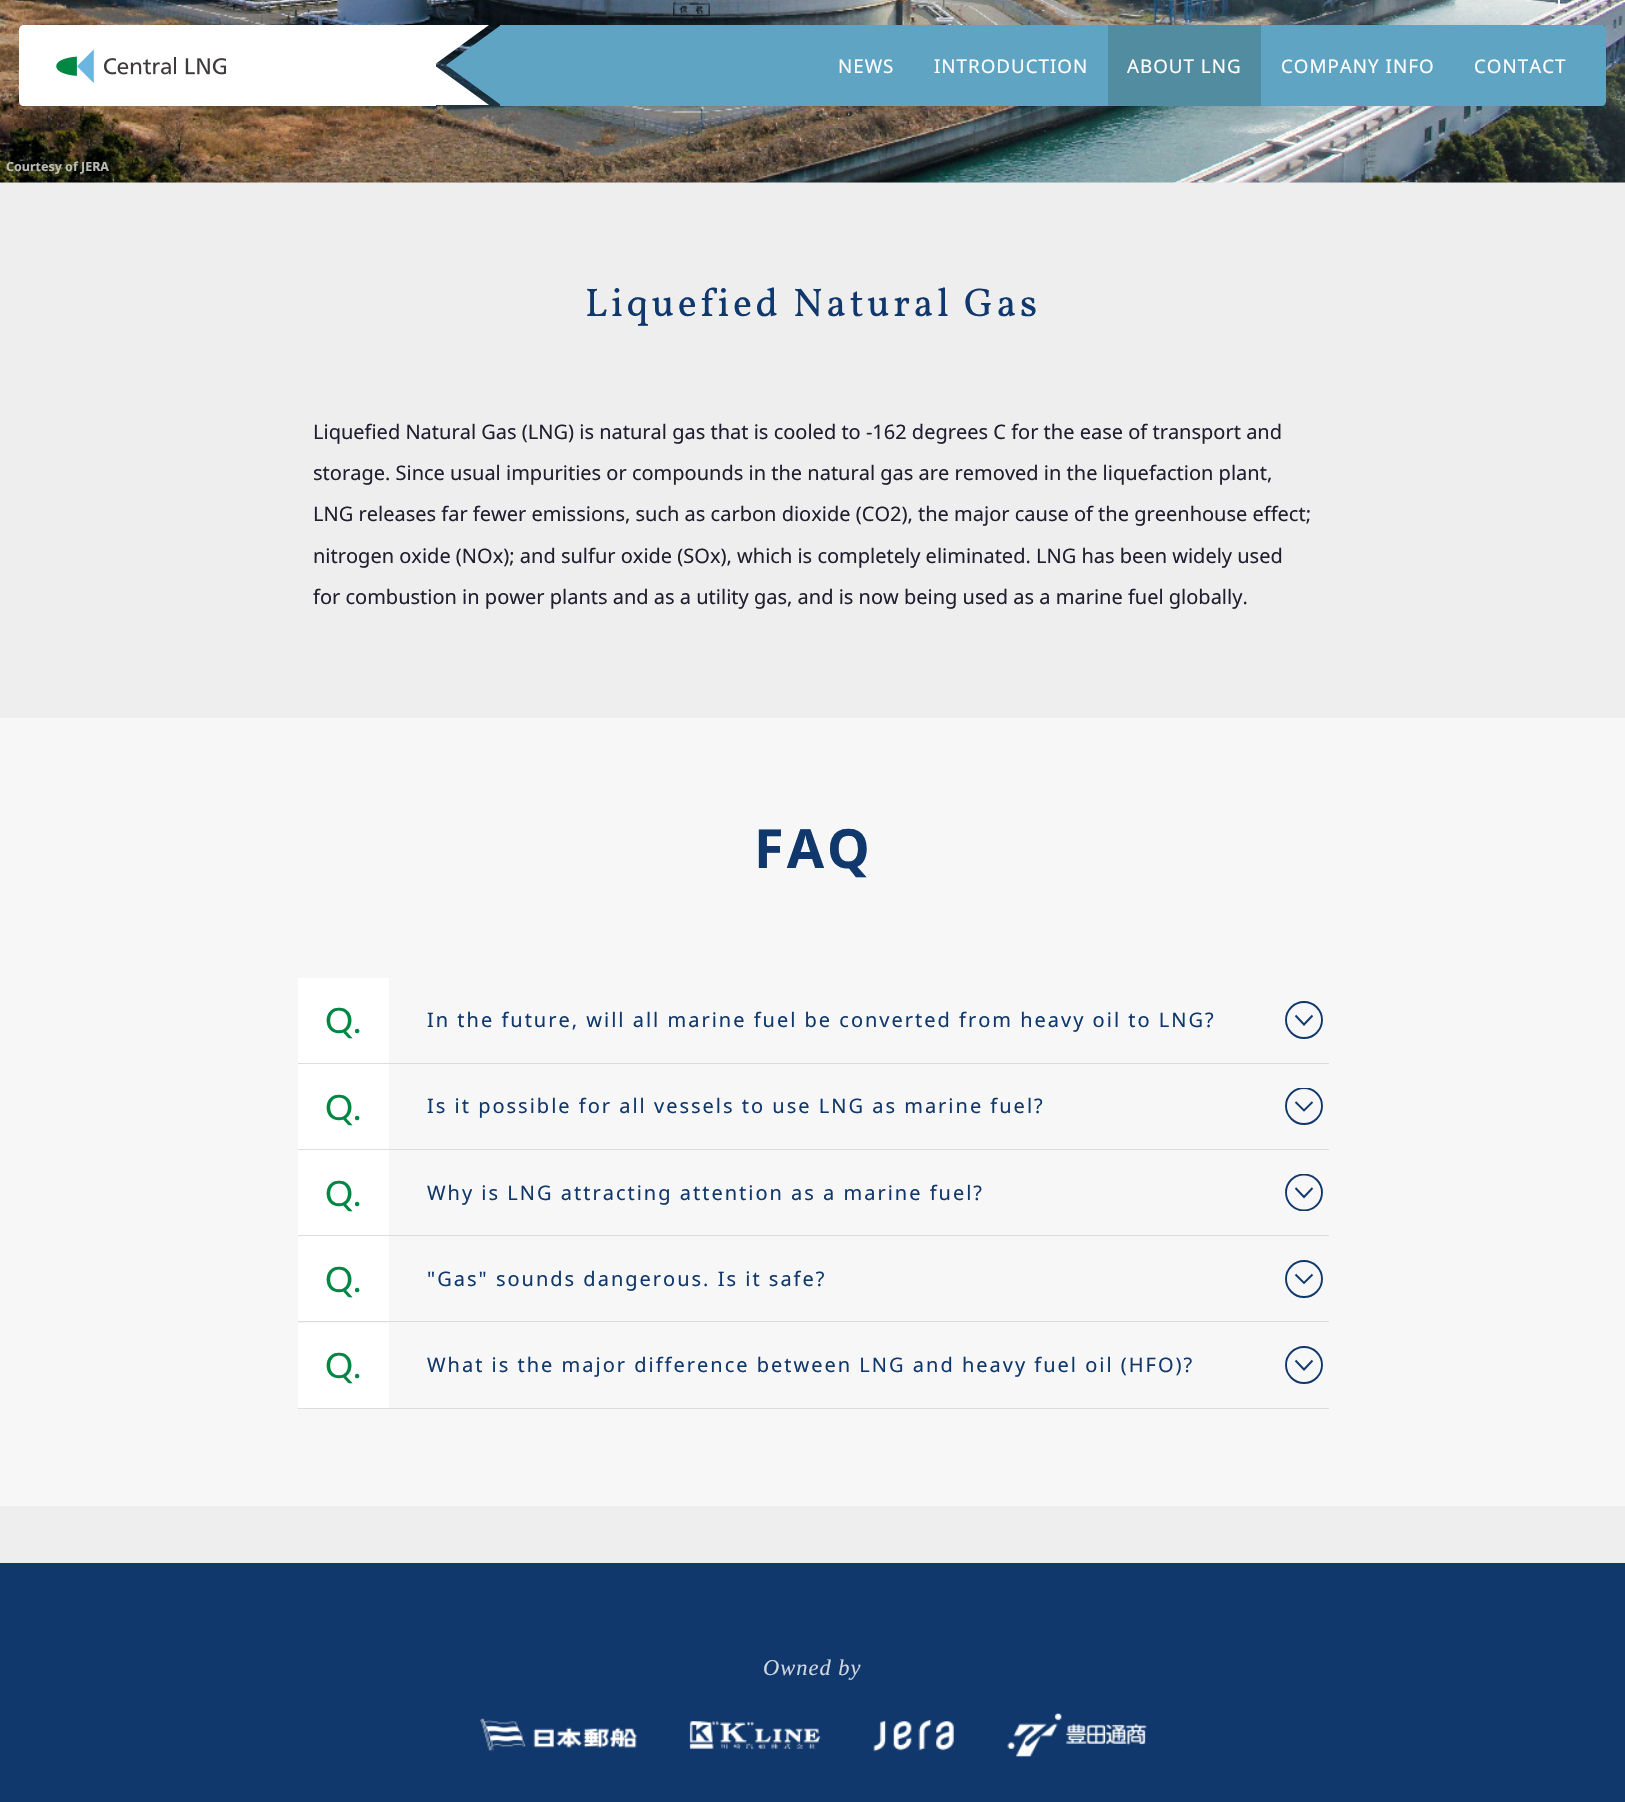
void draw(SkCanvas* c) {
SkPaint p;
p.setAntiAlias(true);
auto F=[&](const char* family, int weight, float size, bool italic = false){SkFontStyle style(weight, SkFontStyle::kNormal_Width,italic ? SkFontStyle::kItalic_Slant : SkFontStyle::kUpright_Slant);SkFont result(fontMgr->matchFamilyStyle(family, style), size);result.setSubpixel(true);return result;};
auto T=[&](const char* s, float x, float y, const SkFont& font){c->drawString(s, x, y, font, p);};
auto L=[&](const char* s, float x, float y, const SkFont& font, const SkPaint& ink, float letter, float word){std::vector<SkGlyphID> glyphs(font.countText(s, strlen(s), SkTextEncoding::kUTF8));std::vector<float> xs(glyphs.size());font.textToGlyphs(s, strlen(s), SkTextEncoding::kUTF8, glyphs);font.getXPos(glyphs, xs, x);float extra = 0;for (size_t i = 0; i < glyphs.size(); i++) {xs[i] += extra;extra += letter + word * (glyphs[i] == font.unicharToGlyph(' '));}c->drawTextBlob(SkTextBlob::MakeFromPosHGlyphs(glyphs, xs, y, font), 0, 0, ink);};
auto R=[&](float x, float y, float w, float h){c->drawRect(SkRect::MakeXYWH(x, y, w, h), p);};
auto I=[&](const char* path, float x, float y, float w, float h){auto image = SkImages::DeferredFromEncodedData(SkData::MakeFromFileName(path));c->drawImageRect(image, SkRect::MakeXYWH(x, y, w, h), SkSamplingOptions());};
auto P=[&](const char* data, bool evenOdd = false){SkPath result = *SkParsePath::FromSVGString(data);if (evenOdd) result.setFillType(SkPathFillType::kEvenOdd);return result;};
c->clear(0xffeeeeee);
I("2.png",0,0,1625,183);
p.setColor(0xffffffff);
R(1558,0,2,9);
c->save();
c->clipPath(P("M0 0h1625v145h-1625zm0 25h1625v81h-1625z",true),true);
p.setColor(0x1a142e19);
p.setMaskFilter(SkMaskFilter::MakeBlur(kNormal_SkBlurStyle, 12.5));
c->drawRect(SkRect::MakeXYWH(0,25,1625,81),p);
p.setMaskFilter(nullptr);
c->restore();
p.setColor(0xffffffff);
c->drawPath(P("M24 25h410v81h-410c-3 0-5-2-5-5v-71c0-3 2-5 5-5z"),p);
I("1.png",56,49,170,34);
c->drawPath(P("M434 25h55l-55 40z"),p);
c->drawPath(P("M489 105h-55v-40z"),p);
R(434,63,2,43);
p.setColor(0xff5fa5c3);
c->drawPath(P("M501 25h1100c3 0 5 2 5 5v71c0 3-2 5-5 5h-1100z"),p);
c->drawPath(P("M501 25v80l-55-40z"),p);
R(500,25,1,81);
auto f1 = F("Noto Sans",400,18.75);
p.setColor(0xffffffff);
L("NEWS",838,73,f1,p,1,0);
L("INTRODUCTION",934,73,f1,p,1,0);
p.setColor(0xff528ca0);
R(1108,25,153,81);
p.setColor(0xffffffff);
L("ABOUT LNG",1127,73,f1,p,1,0);
L("COMPANY INFO",1281,73,f1,p,1,0);
L("CONTACT",1474,73,f1,p,1,0);
auto f2 = F("Noto Sans",700,12.5);
p.setColor(0xffbabbb6);
T("Courtesy of JERA",6,171,f2);
auto f3 = F("Vollkorn",400,40);
p.setColor(0xff11386c);
L("Liquefied Natural Gas",585,316,f3,p,3.5,0);
auto f4 = F("Noto Sans",400,20);
p.setColor(0xff201f30);
T("Liquefied Natural Gas (LNG) is natural gas that is cooled to -162 degrees C for the ease of transport and",313,439,f4);
T("storage. Since usual impurities or compounds in the natural gas are removed in the liquefaction plant,",313,480,f4);
T("LNG releases far fewer emissions, such as carbon dioxide (CO2), the major cause of the greenhouse effect;",313,521,f4);
T("nitrogen oxide (NOx); and sulfur oxide (SOx), which is completely eliminated. LNG has been widely used",313,563,f4);
T("for combustion in power plants and as a utility gas, and is now being used as a marine fuel globally.",313,604,f4);
p.setColor(0xfff7f7f7);
R(0,718,1625,788);
auto f5 = F("Noto Sans",700,54);
p.setColor(0xff11386c);
L("FAQ",754,868,f5,p,3,0);
p.setColor(0xffdddddd);
R(298,1063,1031,1);
p.setColor(0xffffffff);
R(298,978,91,85);
auto f6 = F("Lato",400,35);
p.setColor(0xff008744);
T("Q.",325,1033,f6);
p.setColor(0xff11386c);
L("In the future, will all marine fuel be converted from heavy oil to LNG?",427,1027,f4,p,2,0);
p.setStroke(true);
p.setStrokeWidth(1.9);
c->drawCircle(1304,1020,18,p);
c->drawPath(P("M1312.5 1015.5l-8.5 9l-8.5-9"),p);
p.setStroke(false);
p.setColor(0xffdddddd);
R(298,1149,1031,1);
p.setColor(0xffffffff);
R(298,1064,91,85);
p.setColor(0xff008744);
T("Q.",325,1120,f6);
p.setColor(0xff11386c);
L("Is it possible for all vessels to use LNG as marine fuel?",427,1113,f4,p,2,0);
c->save();
c->clipRect(SkRect::MakeXYWH(1285,1088,38,37));
p.setStroke(true);
c->drawCircle(1304,1106,18,p);
c->restore();
c->drawPath(P("M1312.5 1102l-8.5 8.5l-8.5-8.5"),p);
p.setStroke(false);
p.setColor(0xffdddddd);
R(298,1235,1031,1);
p.setColor(0xffffffff);
R(298,1150,91,85);
p.setColor(0xff008744);
T("Q.",325,1206,f6);
p.setColor(0xff11386c);
L("Why is LNG attracting attention as a marine fuel?",427,1200,f4,p,2,0);
c->save();
c->clipRect(SkRect::MakeXYWH(1285,1174,38,37));
p.setStroke(true);
c->drawCircle(1304,1192.5,18,p);
c->restore();
c->drawPath(P("M1312.5 1188l-8.5 9l-8.5-9"),p);
p.setStroke(false);
p.setColor(0xffdddddd);
R(298,1321,1031,1);
p.setColor(0xffffffff);
R(298,1236,91,85);
p.setColor(0xff008744);
T("Q.",325,1292,f6);
p.setColor(0xff11386c);
L("\"Gas\" sounds dangerous. Is it safe?",427,1286,f4,p,2,0);
p.setStroke(true);
c->drawCircle(1304,1279,18,p);
c->drawPath(P("M1312.5 1274.5l-8.5 8.5l-8.5-8.5"),p);
p.setStroke(false);
p.setColor(0xffdddddd);
R(298,1408,1031,1);
p.setColor(0xffffffff);
R(298,1323,91,85);
p.setColor(0xff008744);
T("Q.",325,1378,f6);
p.setColor(0xff11386c);
L("What is the major difference between LNG and heavy fuel oil (HFO)?",427,1372,f4,p,2,0);
p.setStroke(true);
c->drawCircle(1304,1365,18,p);
c->drawPath(P("M1312.5 1360.5l-8.5 9l-8.5-9"),p);
p.setStroke(false);
R(0,1563,1625,239);
auto f7 = F("Liberation Serif",400,22.5,true);
p.setColor(0xffcfd7e2);
L("Owned by",763,1675,f7,p,1,0);
I("3.png",480,1718,157,34);
I("4.png",689,1721,132,28);
I("5.png",873,1720,81,32);
I("6.png",1007,1713,140,44);
}
